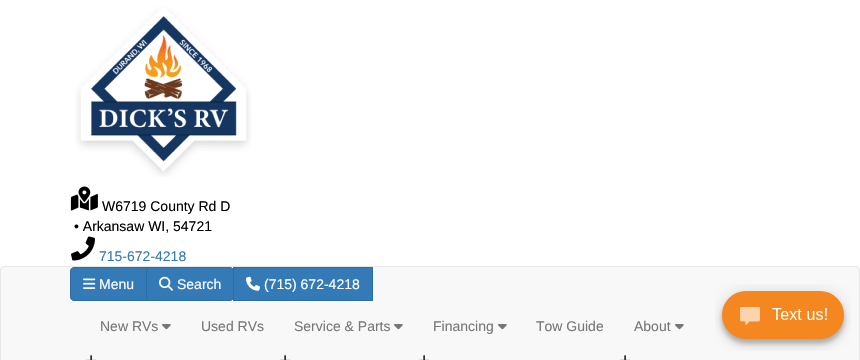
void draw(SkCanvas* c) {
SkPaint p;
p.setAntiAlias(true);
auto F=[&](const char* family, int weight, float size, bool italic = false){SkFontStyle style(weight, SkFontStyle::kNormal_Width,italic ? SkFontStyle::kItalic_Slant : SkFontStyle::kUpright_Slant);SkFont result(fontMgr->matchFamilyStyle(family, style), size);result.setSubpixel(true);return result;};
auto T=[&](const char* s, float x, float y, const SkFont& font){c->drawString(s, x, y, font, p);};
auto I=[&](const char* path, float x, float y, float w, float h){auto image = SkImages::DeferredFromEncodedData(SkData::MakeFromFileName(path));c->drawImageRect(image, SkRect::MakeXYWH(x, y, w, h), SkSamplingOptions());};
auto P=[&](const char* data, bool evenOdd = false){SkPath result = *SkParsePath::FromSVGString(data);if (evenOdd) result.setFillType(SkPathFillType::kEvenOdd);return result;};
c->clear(0xffffffff);
I("1.png",75,6,176,171);
I("2.png",70,186,28,25);
auto f1 = F("Liberation Sans",400,14);
p.setColor(0xff000000);
T("W6719 County Rd D",102,211,f1);
T("• Arkansaw WI, 54721",74,231,f1);
I("3.png",71,236,24,25);
p.setColor(0xff337ab7);
T("715-672-4218",99,261,f1);
p.setColor(0xfff8f8f8);
c->drawRoundRect(SkRect::MakeXYWH(.5,266.5,859,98),3.5,3.5,p);
p.setStroke(true);
p.setStrokeWidth(1);
p.setColor(0xffe7e7e7);
c->drawRoundRect(SkRect::MakeXYWH(.5,266.5,859,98),3.5,3.5,p);
p.setStroke(false);
p.setColor(0xff337ab7);
c->drawPath(P("M74 267.5h72.5v33h-72.5c-2 0-3.5-1.5-3.5-3.5v-26c0-2 1.5-3.5 3.5-3.5z"),p);
p.setStroke(true);
p.setColor(0xff2e6da4);
c->drawPath(P("M74 267.5h72.5v33h-72.5c-2 0-3.5-1.5-3.5-3.5v-26c0-2 1.5-3.5 3.5-3.5z"),p);
I("4.png",83,278,13,11);
p.setStroke(false);
p.setColor(0xffffffff);
T("Menu",99,289,f1);
p.setColor(0xff337ab7);
c->drawRect(SkRect::MakeXYWH(233.5,267.5,139,33),p);
p.setStroke(true);
p.setColor(0xff2e6da4);
c->drawRect(SkRect::MakeXYWH(233.5,267.5,139,33),p);
p.setStroke(false);
p.setColor(0xff337ab7);
c->drawPath(P("M146.5 267.5h83.5c2 0 3.5 1.5 3.5 3.5v26c0 2-1.5 3.5-3.5 3.5h-83.5z"),p);
p.setStroke(true);
p.setColor(0xff2e6da4);
c->drawPath(P("M146.5 267.5h83.5c2 0 3.5 1.5 3.5 3.5v26c0 2-1.5 3.5-3.5 3.5h-83.5z"),p);
I("5.png",159,276,14,15);
p.setStroke(false);
p.setColor(0xffffffff);
T("Search",177,289,f1);
I("6.png",246,276,14,15);
T("(715) 672-4218",264,289,f1);
p.setColor(0xff777777);
T("New RVs",100,331,f1);
I("7.png",162,324,9,6);
I("8.png",86,355,10,5);
T("Used RVs",201,331,f1);
T("Service & Parts",294,331,f1);
I("7.png",394,324,9,6);
I("8.png",280,355,10,5);
T("Financing",433,331,f1);
I("7.png",498,324,9,6);
I("8.png",419,355,10,5);
T("Tow Guide",536,331,f1);
T("About",634,331,f1);
I("7.png",675,324,9,6);
I("8.png",620,355,10,5);
I("9.png",715,284,136,67);
}
